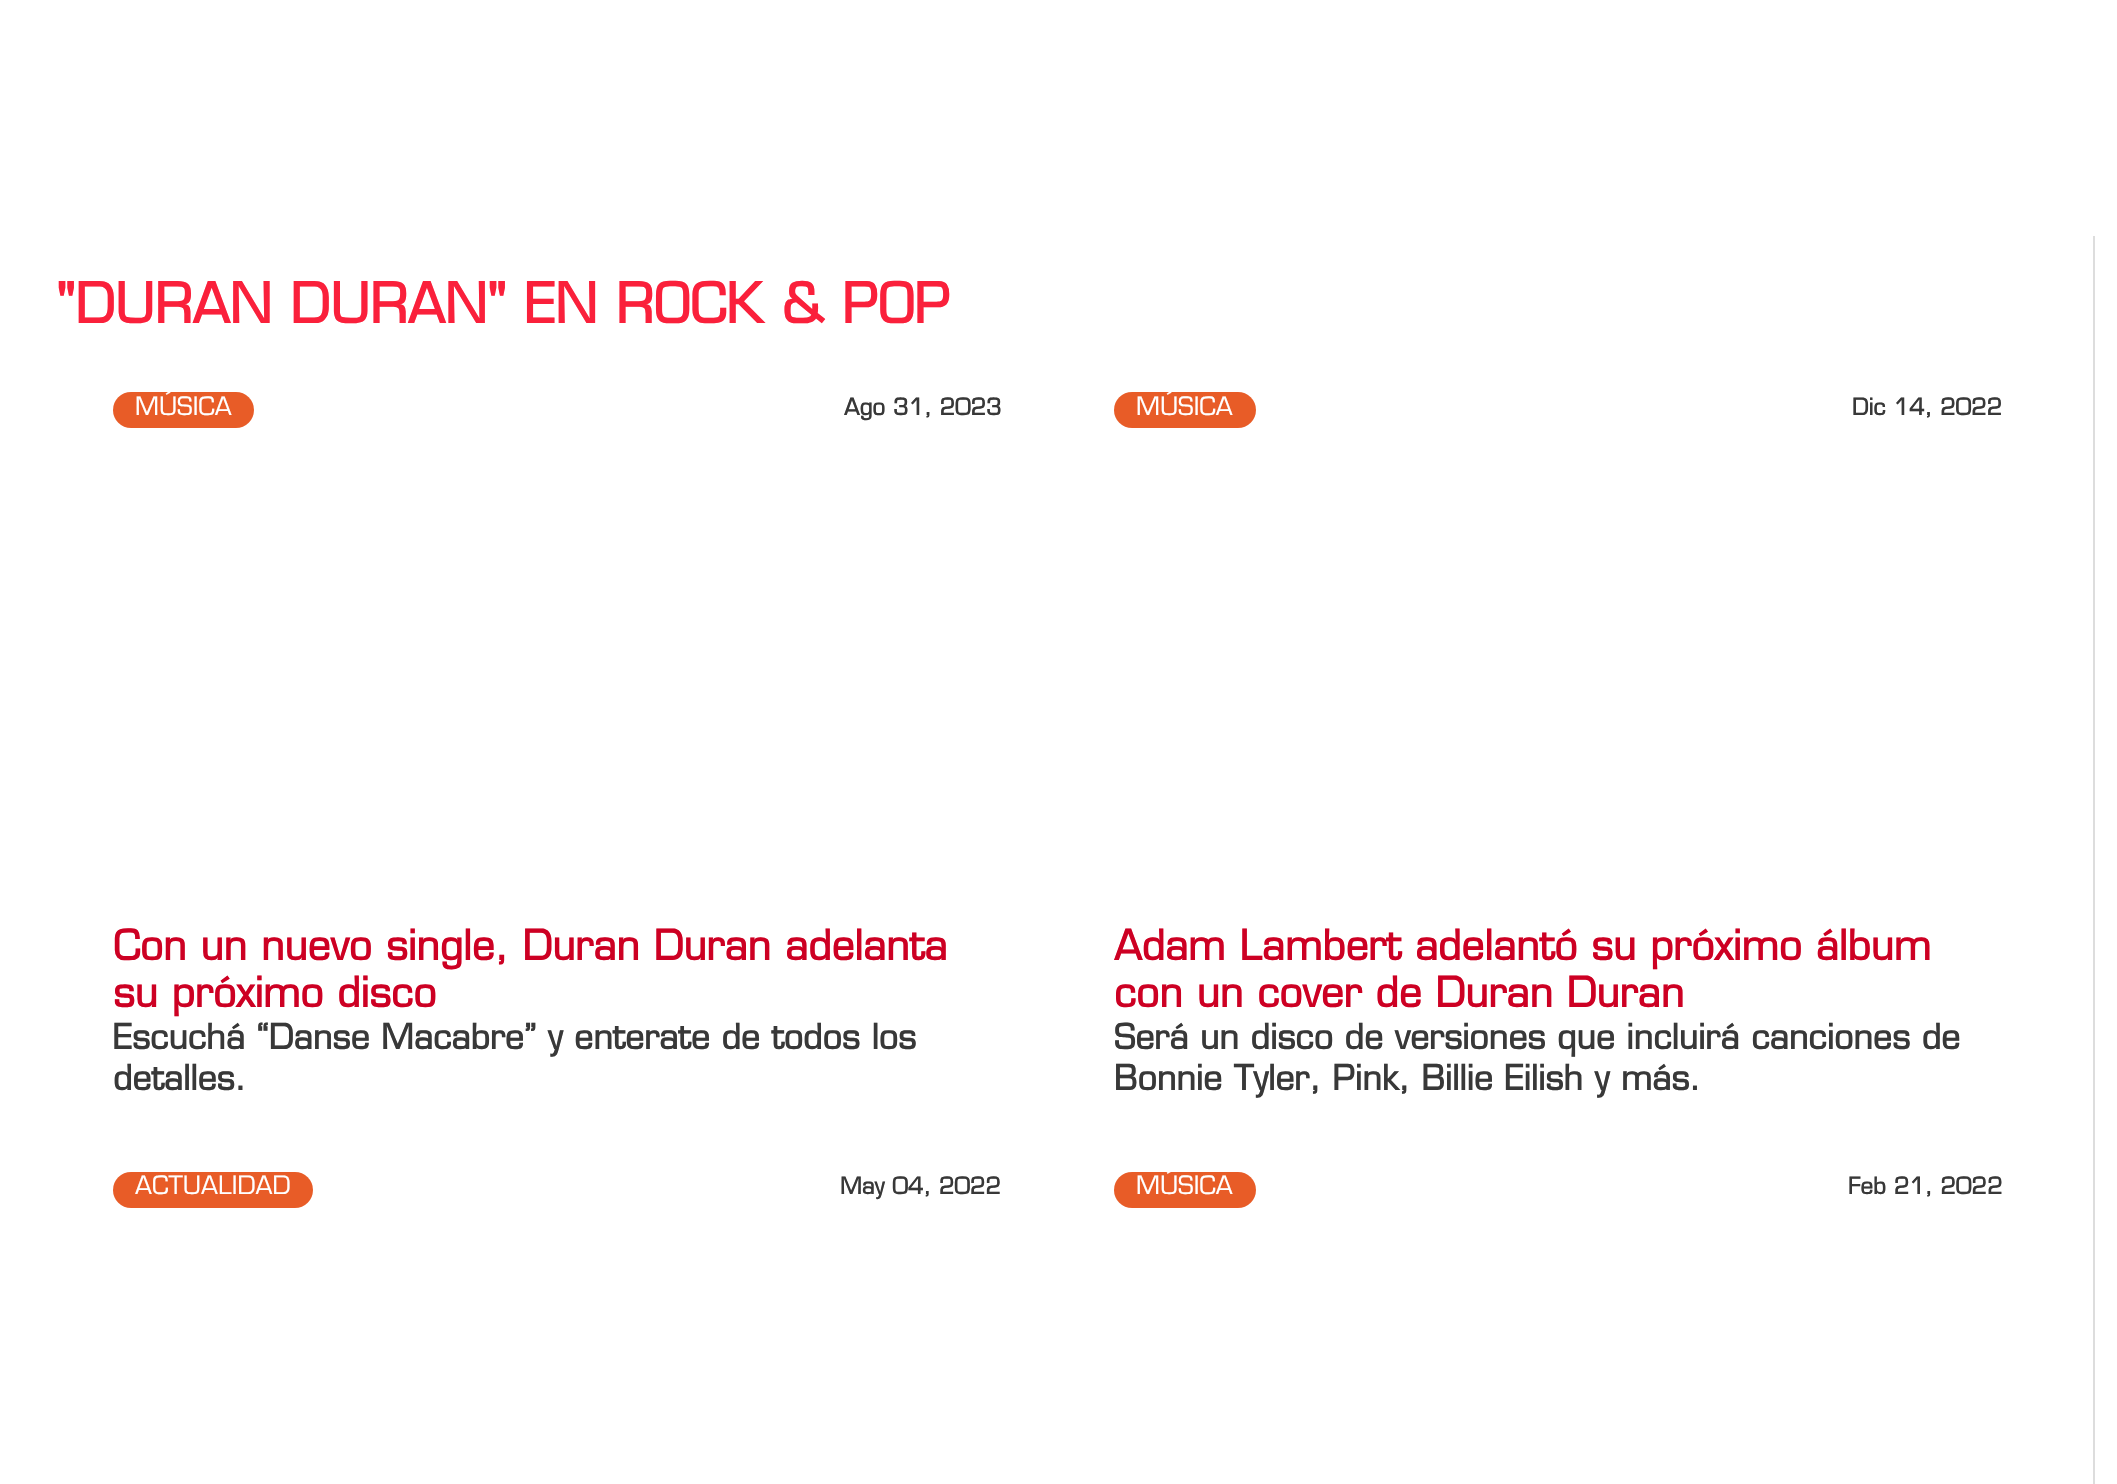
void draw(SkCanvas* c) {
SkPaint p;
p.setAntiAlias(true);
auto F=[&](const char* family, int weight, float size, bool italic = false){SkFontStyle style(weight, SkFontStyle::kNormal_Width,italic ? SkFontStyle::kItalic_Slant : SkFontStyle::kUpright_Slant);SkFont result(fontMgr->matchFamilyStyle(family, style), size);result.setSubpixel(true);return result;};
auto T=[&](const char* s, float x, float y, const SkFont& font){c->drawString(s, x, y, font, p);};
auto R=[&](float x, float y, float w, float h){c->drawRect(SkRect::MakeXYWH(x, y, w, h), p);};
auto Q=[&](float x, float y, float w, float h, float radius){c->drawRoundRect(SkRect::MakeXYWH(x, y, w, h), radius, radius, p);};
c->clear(0xffffffff);
p.setColor(0xffdddddd);
R(2093,236,2,1248);
auto f1 = F("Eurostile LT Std",700,54);
p.setColor(0xfffa203b);
T("\"DURAN DURAN\" EN ROCK & POP",56,323,f1);
p.setColor(0xffe85c27);
Q(113,392,141,36,18);
auto f2 = F("Eurostile LT Std",400,24.75);
p.setColor(0xffffffff);
T("MÚSICA",135,415,f2);
auto f3 = F("Eurostile LT Std",700,22.5);
p.setColor(0xff383838);
T("Ago 31, 2023",844,415,f3);
auto f4 = F("Eurostile LT Std",700,40.5);
p.setColor(0xffcd0023);
T("Con un nuevo single, Duran Duran adelanta",113,960,f4);
T("su próximo disco",113,1007,f4);
auto f5 = F("Eurostile LT Std",700,33.75);
p.setColor(0xff383838);
T("Escuchá “Danse Macabre” y enterate de todos los",113,1049,f5);
T("detalles.",113,1090,f5);
p.setColor(0xffe85c27);
Q(1114,392,142,36,18);
p.setColor(0xffffffff);
T("MÚSICA",1136,415,f2);
p.setColor(0xff383838);
T("Dic 14, 2022",1852,415,f3);
p.setColor(0xffcd0023);
T("Adam Lambert adelantó su próximo álbum",1114,960,f4);
T("con un cover de Duran Duran",1114,1007,f4);
p.setColor(0xff383838);
T("Será un disco de versiones que incluirá canciones de",1114,1049,f5);
T("Bonnie Tyler, Pink, Billie Eilish y más.",1114,1090,f5);
p.setColor(0xffe85c27);
Q(113,1172,200,36,18);
p.setColor(0xffffffff);
T("ACTUALIDAD",135,1194,f2);
p.setColor(0xff383838);
T("May 04, 2022",840,1194,f3);
p.setColor(0xffe85c27);
Q(1114,1172,142,36,18);
p.setColor(0xffffffff);
T("MÚSICA",1136,1194,f2);
p.setColor(0xff383838);
T("Feb 21, 2022",1848,1194,f3);
}
